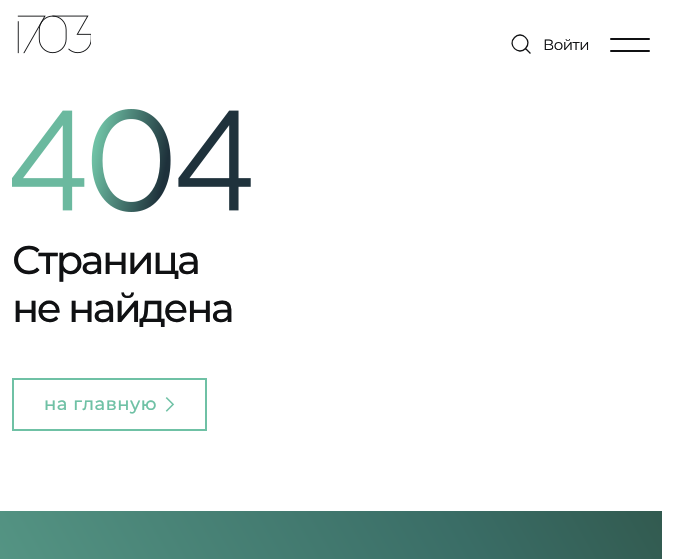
void draw(SkCanvas* c) {
SkPaint p;
p.setAntiAlias(true);
auto F=[&](const char* family, int weight, float size, bool italic = false){SkFontStyle style(weight, SkFontStyle::kNormal_Width,italic ? SkFontStyle::kItalic_Slant : SkFontStyle::kUpright_Slant);SkFont result(fontMgr->matchFamilyStyle(family, style), size);result.setSubpixel(true);return result;};
auto L=[&](const char* s, float x, float y, const SkFont& font, const SkPaint& ink, float letter, float word){std::vector<SkGlyphID> glyphs(font.countText(s, strlen(s), SkTextEncoding::kUTF8));std::vector<float> xs(glyphs.size());font.textToGlyphs(s, strlen(s), SkTextEncoding::kUTF8, glyphs);font.getXPos(glyphs, xs, x);float extra = 0;for (size_t i = 0; i < glyphs.size(); i++) {xs[i] += extra;extra += letter + word * (glyphs[i] == font.unicharToGlyph(' '));}c->drawTextBlob(SkTextBlob::MakeFromPosHGlyphs(glyphs, xs, y, font), 0, 0, ink);};
auto R=[&](float x, float y, float w, float h){c->drawRect(SkRect::MakeXYWH(x, y, w, h), p);};
auto Q=[&](float x, float y, float w, float h, float radius){c->drawRoundRect(SkRect::MakeXYWH(x, y, w, h), radius, radius, p);};
auto I=[&](const char* path, float x, float y, float w, float h){auto image = SkImages::DeferredFromEncodedData(SkData::MakeFromFileName(path));c->drawImageRect(image, SkRect::MakeXYWH(x, y, w, h), SkSamplingOptions());};
auto P=[&](const char* data, bool evenOdd = false){SkPath result = *SkParsePath::FromSVGString(data);if (evenOdd) result.setFillType(SkPathFillType::kEvenOdd);return result;};
c->clear(0xffffffff);
I("1.png",17,15,74,39);
p.setStroke(true);
p.setStrokeWidth(1.3);
p.setStrokeCap(SkPaint::kSquare_Cap);
p.setStrokeJoin(SkPaint::kRound_Join);
p.setColor(0xff101113);
c->drawPath(P("M530 53l-4.5-4.5m0 0c7.5-7.5-4-18.5-11-11c-7.5 7.5 4 18.5 11 11z"),p);
auto f1 = F("Montserrat",400,15);
p.setStroke(false);
L("Войти",543,50,f1,p,-.5,0);
Q(610,38,40,2,1);
Q(610,50,40,2,1);
I("2.png",12,109,239,103);
auto f2 = F("Montserrat",500,40);
L("Страница",12,274,f2,p,-2.4,0);
L("не найдена",12,322,f2,p,-2.4,0);
p.setStroke(true);
p.setStrokeWidth(2);
p.setStrokeCap(SkPaint::kButt_Cap);
p.setStrokeJoin(SkPaint::kMiter_Join);
p.setColor(0xff6fc1a5);
c->drawRect(SkRect::MakeXYWH(13,379,193,51),p);
auto f3 = F("Montserrat",500,18);
p.setStroke(false);
L("на главную",44,410,f3,p,.5,0);
I("3.png",165,397,10,15);
{
const SkColor colors[] = {0xff69b69c,0xff5a9d8a,0xff4a8578,0xff3a6d66,0xff2f5347,0xff1a3a32,0xff010100};
const float stops[] = {0,.17,.33,.5,.67,.83,1};
const SkPoint ends[] = {{4.9,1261}, {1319,503}};
p.setShader(SkGradientShader::MakeLinear(ends, colors, stops, 7, SkTileMode::kClamp));
p.setAlpha(255);
}
R(0,511,662,48);
}
